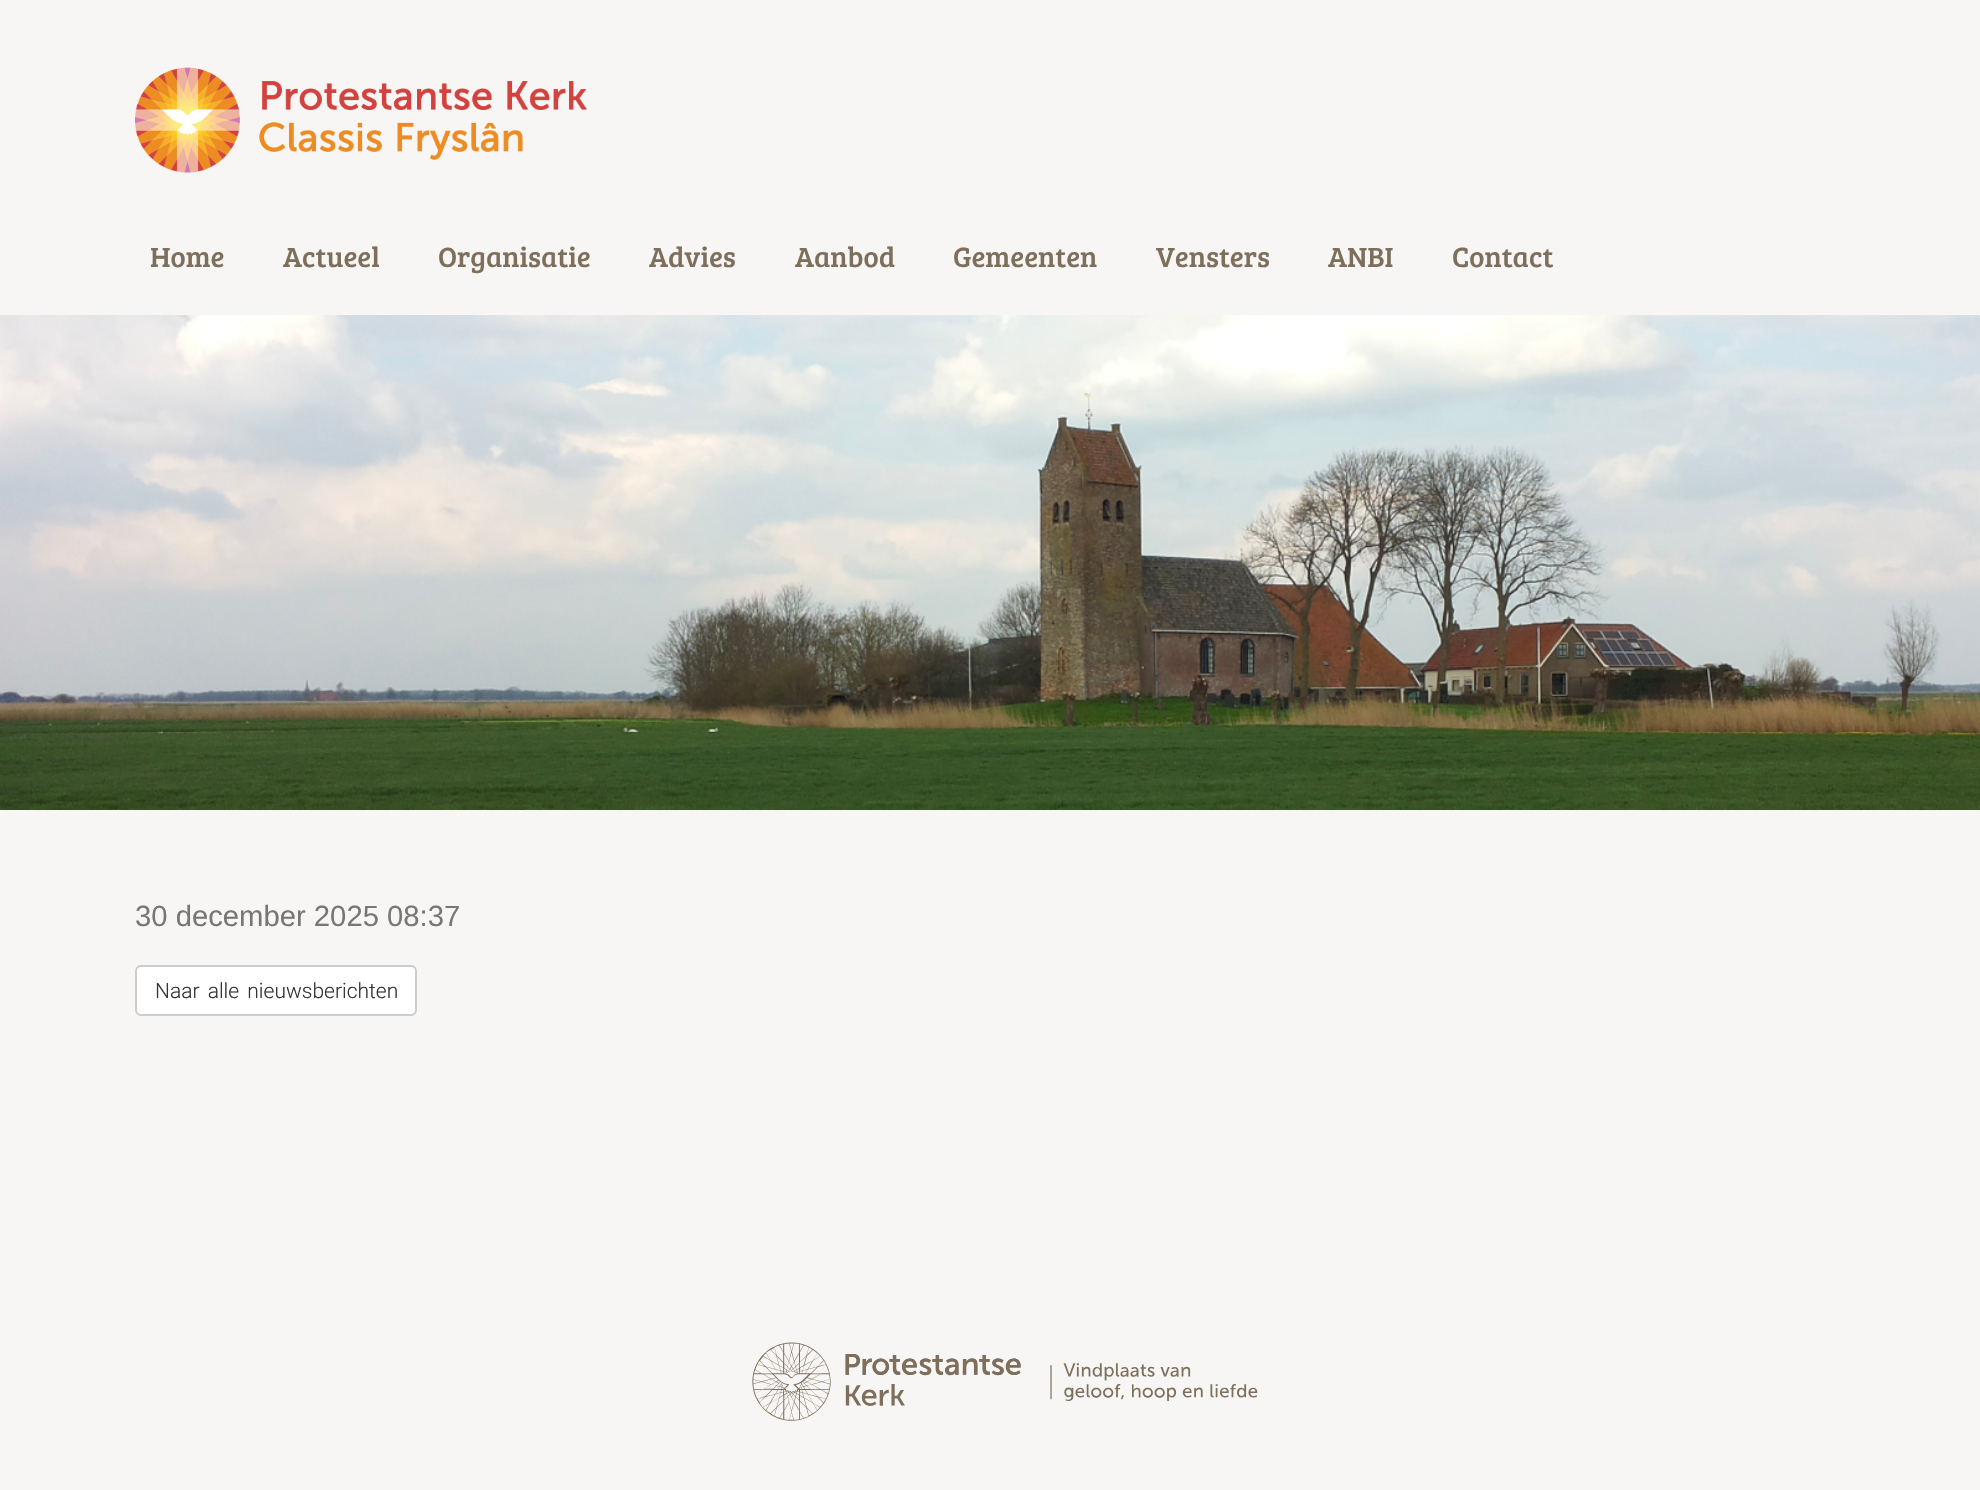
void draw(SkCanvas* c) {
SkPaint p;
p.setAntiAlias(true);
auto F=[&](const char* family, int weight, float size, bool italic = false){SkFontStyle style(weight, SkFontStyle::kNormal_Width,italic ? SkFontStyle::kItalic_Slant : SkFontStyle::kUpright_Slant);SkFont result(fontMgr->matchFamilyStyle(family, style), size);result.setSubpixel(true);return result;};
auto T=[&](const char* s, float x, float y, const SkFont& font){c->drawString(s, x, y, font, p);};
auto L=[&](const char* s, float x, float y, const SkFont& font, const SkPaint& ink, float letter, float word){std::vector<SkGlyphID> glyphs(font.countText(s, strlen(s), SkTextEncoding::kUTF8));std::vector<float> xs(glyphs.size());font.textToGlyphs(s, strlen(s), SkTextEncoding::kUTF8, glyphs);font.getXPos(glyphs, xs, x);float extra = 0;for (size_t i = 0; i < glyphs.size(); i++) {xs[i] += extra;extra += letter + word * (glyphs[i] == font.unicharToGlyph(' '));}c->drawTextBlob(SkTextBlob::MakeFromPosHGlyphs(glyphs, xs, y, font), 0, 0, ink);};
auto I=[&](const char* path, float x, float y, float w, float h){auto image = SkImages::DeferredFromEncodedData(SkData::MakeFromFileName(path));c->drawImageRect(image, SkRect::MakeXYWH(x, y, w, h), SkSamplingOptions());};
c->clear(0xfff7f6f4);
I("1.png",135,67,452,106);
auto f1 = F("Bree Serif",400,28.75);
p.setColor(0xff7e6f5d);
T("Home",150,267,f1);
T("Actueel",283,267,f1);
T("Organisatie",438,267,f1);
T("Advies",649,267,f1);
T("Aanbod",795,267,f1);
T("Gemeenten",953,267,f1);
T("Vensters",1156,267,f1);
T("ANBI",1328,267,f1);
T("Contact",1452,267,f1);
I("2.png",0,315,1980,495);
auto f2 = F("Liberation Sans",400,29.25);
p.setColor(0xff777777);
T("30 december 2025 08:37",135,926,f2);
p.setColor(0xffffffff);
c->drawRoundRect(SkRect::MakeXYWH(136,966,280,49),5,5,p);
p.setStroke(true);
p.setStrokeWidth(2);
p.setColor(0xffcccccc);
c->drawRoundRect(SkRect::MakeXYWH(136,966,280,49),5,5,p);
auto f3 = F("Roboto",300,21);
p.setStroke(false);
p.setColor(0xff333333);
L("Naar alle nieuwsberichten",155,998,f3,p,0,3);
I("3.png",752,1342,506,79);
}
